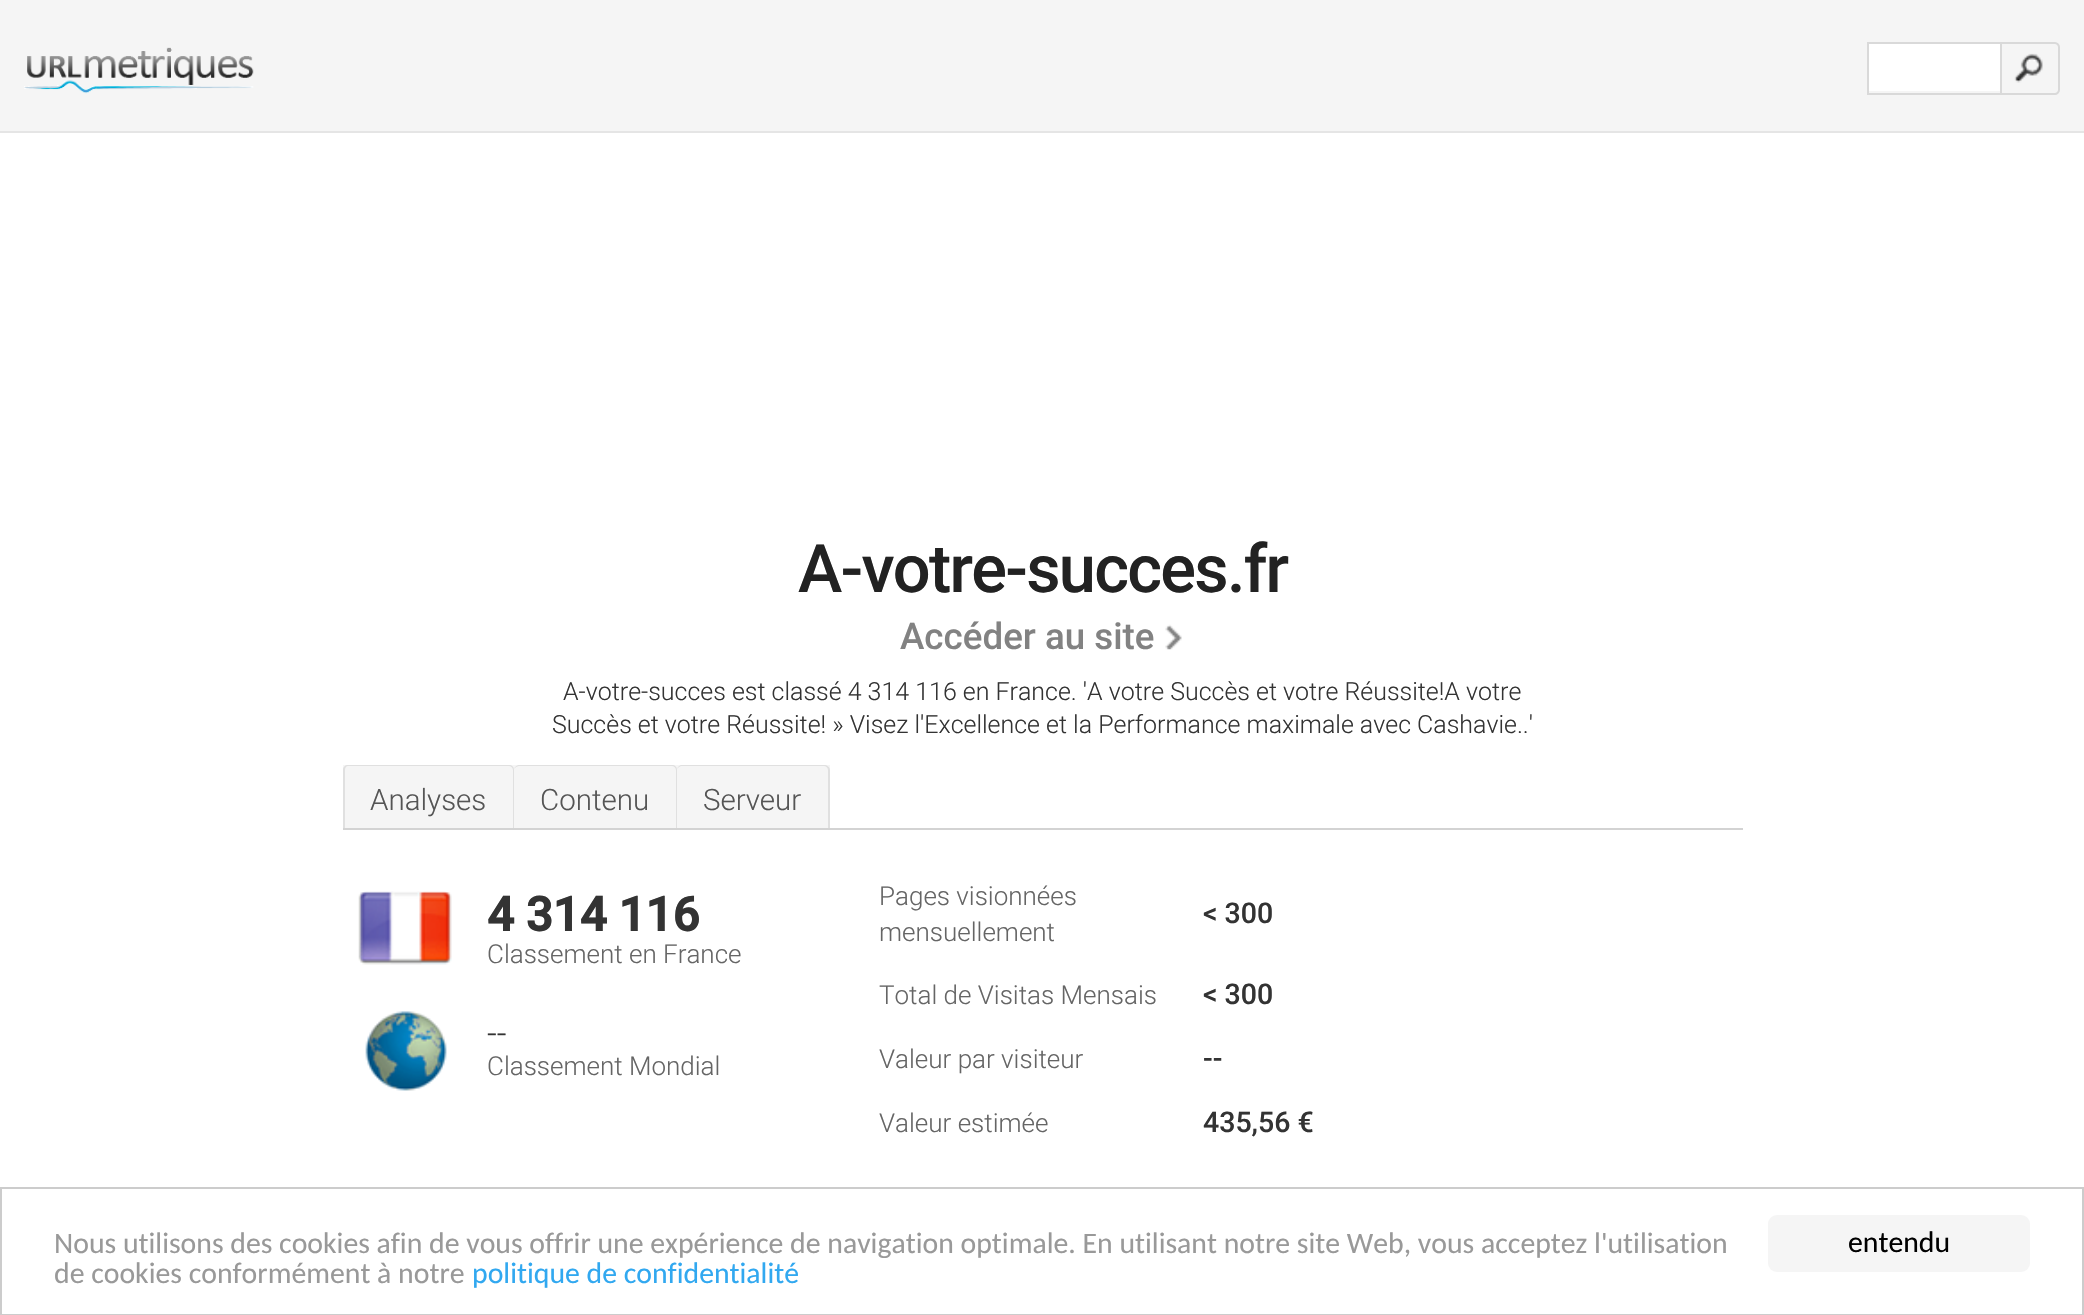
void draw(SkCanvas* c) {
SkPaint p;
p.setAntiAlias(true);
auto F=[&](const char* family, int weight, float size, bool italic = false){SkFontStyle style(weight, SkFontStyle::kNormal_Width,italic ? SkFontStyle::kItalic_Slant : SkFontStyle::kUpright_Slant);SkFont result(fontMgr->matchFamilyStyle(family, style), size);result.setSubpixel(true);return result;};
auto T=[&](const char* s, float x, float y, const SkFont& font){c->drawString(s, x, y, font, p);};
auto L=[&](const char* s, float x, float y, const SkFont& font, const SkPaint& ink, float letter, float word){std::vector<SkGlyphID> glyphs(font.countText(s, strlen(s), SkTextEncoding::kUTF8));std::vector<float> xs(glyphs.size());font.textToGlyphs(s, strlen(s), SkTextEncoding::kUTF8, glyphs);font.getXPos(glyphs, xs, x);float extra = 0;for (size_t i = 0; i < glyphs.size(); i++) {xs[i] += extra;extra += letter + word * (glyphs[i] == font.unicharToGlyph(' '));}c->drawTextBlob(SkTextBlob::MakeFromPosHGlyphs(glyphs, xs, y, font), 0, 0, ink);};
auto R=[&](float x, float y, float w, float h){c->drawRect(SkRect::MakeXYWH(x, y, w, h), p);};
auto Q=[&](float x, float y, float w, float h, float radius){c->drawRoundRect(SkRect::MakeXYWH(x, y, w, h), radius, radius, p);};
auto I=[&](const char* path, float x, float y, float w, float h){auto image = SkImages::DeferredFromEncodedData(SkData::MakeFromFileName(path));c->drawImageRect(image, SkRect::MakeXYWH(x, y, w, h), SkSamplingOptions());};
auto P=[&](const char* data, bool evenOdd = false){SkPath result = *SkParsePath::FromSVGString(data);if (evenOdd) result.setFillType(SkPathFillType::kEvenOdd);return result;};
c->clear(0xffffffff);
p.setColor(0xfff5f5f5);
R(0,0,2084,131);
p.setColor(0xffe5e5e5);
R(0,131,2084,2);
I("1.png",24,47,230,47);
p.setColor(0xffd9d9d9);
R(1867,42,133,2);
R(1867,93,133,2);
R(1867,42,2,53);
p.setColor(0xffffffff);
R(1869,44,131,47);
I("2.png",2014,53,29,30);
p.setStroke(true);
p.setStrokeWidth(2);
p.setColor(0xffd9d9d9);
c->drawPath(P("M2001 43h54c2 0 4 2 4 4v43c0 2-2 4-4 4h-54z"),p);
auto f1 = F("Roboto",500,66.75);
p.setStroke(false);
p.setColor(0xff222222);
L("A-votre-succes.fr",798,592,f1,p,-1.75,0);
auto f2 = F("Roboto",500,36.75);
p.setColor(0xff828282);
T("Accéder au site",900,649,f2);
I("3.png",1165,624,17,26);
auto f3 = F("Roboto",300,24.95);
p.setColor(0xff333333);
T("A-votre-succes est classé 4 314 116 en France. 'A votre Succès et votre Réussite!A votre",563,700,f3);
T("Succès et votre Réussite! » Visez l'Excellence et la Performance maximale avec Cashavie..'",552,733,f3);
p.setColor(0xffd3d3d3);
R(343,828,1400,2);
p.setColor(0xfff5f5f5);
R(343,765,487,63);
p.setColor(0xffe0e0e0);
c->drawPath(P("M348 765h161c3 0 5 2 5 5v58h-171v-58c0-3 2-5 5-5zm0 1h161c2 0 4 2 4 4v58h-168v-58c0-2 1-4 3-4z",true),p);
auto f4 = F("Roboto",300,29.5);
p.setColor(0xff555555);
T("Analyses",370,810,f4);
p.setColor(0xffe0e0e0);
c->drawPath(P("M520 765h152c3 0 5 2 5 5v58h-163v-58c0-3 3-5 6-5zm0 1h152c2 0 4 2 4 4v58h-162v-58c0-2 3-4 6-4z",true),p);
p.setColor(0xff555555);
T("Contenu",540,810,f4);
p.setColor(0xffe0e0e0);
c->drawPath(P("M682 765h142c3 0 6 2 6 5v58h-153v-58c0-3 3-5 5-5zm0 1h142c2 0 4 2 4 4v58h-151v-58c0-2 3-4 5-4z",true),p);
p.setColor(0xff555555);
T("Serveur",703,810,f4);
I("4.png",358,891,94,74);
auto f5 = F("Roboto",700,47.5);
p.setColor(0xff333333);
T("4 314 116",487,931,f5);
auto f6 = F("Roboto",300,26);
p.setColor(0xff656565);
T("Classement en France",487,963,f6);
I("5.png",365,1011,82,80);
auto f7 = F("Roboto",300,34);
p.setColor(0xff333333);
T("--",487,1045,f7);
p.setColor(0xff656565);
T("Classement Mondial",487,1075,f6);
T("Pages visionnées",879,905,f6);
T("mensuellement",879,941,f6);
auto f8 = F("Roboto",500,28.5);
p.setColor(0xff333333);
T("< 300",1203,923,f8);
p.setColor(0xff656565);
T("Total de Visitas Mensais",879,1004,f6);
p.setColor(0xff333333);
T("< 300",1203,1004,f8);
p.setColor(0xff656565);
T("Valeur par visiteur",879,1068,f6);
p.setColor(0xff333333);
T("--",1203,1068,f8);
p.setColor(0xff656565);
T("Valeur estimée",879,1132,f6);
p.setColor(0xff333333);
T("435,56 €",1203,1132,f8);
p.setStroke(true);
p.setColor(0xffcccccc);
c->drawRect(SkRect::MakeXYWH(1,1188,2082,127),p);
auto f9 = F("Carlito",400,29.75);
p.setStroke(false);
p.setColor(0xff999999);
T("Nous utilisons des cookies afin de vous offrir une expérience de navigation optimale. En utilisant notre site Web, vous acceptez l'utilisation",54,1253,f9);
T("de cookies conformément à notre",54,1283,f9);
p.setColor(0xff31a8f0);
T("politique de confidentialité",472,1283,f9);
p.setColor(0xfff5f5f5);
Q(1768,1215,262,57,9);
p.setColor(0xff000000);
T("entendu",1848,1252,f9);
}
